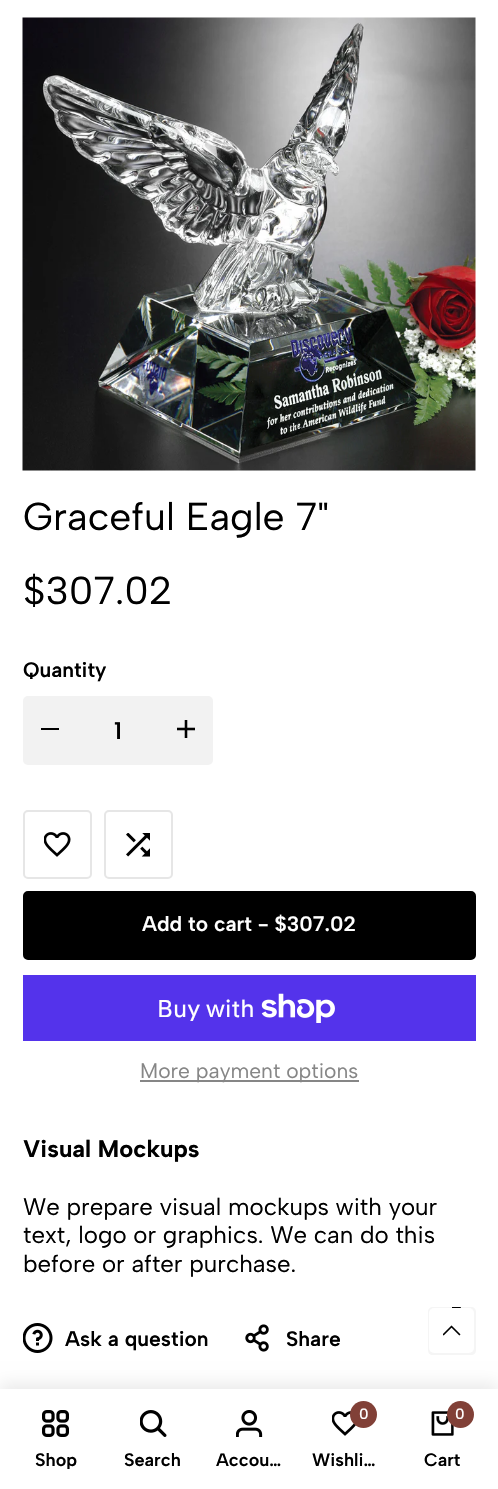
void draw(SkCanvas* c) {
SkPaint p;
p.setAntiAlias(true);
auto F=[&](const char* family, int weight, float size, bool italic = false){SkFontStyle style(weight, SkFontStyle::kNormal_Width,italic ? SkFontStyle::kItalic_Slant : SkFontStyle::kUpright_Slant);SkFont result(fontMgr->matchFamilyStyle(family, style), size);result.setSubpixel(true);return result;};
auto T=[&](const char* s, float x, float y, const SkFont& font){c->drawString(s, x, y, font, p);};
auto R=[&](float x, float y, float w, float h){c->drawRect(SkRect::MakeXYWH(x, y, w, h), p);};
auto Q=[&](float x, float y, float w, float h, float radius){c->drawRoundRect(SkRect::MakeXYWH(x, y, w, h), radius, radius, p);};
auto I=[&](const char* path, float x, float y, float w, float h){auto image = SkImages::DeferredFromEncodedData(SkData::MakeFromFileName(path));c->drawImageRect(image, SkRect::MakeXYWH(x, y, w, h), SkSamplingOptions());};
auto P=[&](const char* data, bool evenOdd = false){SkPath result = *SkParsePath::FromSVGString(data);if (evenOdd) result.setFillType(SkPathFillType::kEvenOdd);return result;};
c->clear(0xffffffff);
I("1.png",22,17,454,454);
auto f1 = F("Albert Sans",400,39);
p.setColor(0xff000000);
T("Graceful Eagle 7\"",23,530,f1);
T("$307.02",23,604,f1);
auto f2 = F("Albert Sans",600,21);
T("Quantity",23,677,f2);
p.setColor(0xfff2f2f2);
Q(23,696,190,69,5);
p.setColor(0xff000000);
R(41,728,18,2);
auto f3 = F("Albert Sans",600,24);
T("1",114,739,f3);
I("2.png",177,720,18,18);
p.setStroke(true);
p.setStrokeWidth(2);
p.setColor(0xffe6e6e6);
c->drawRoundRect(SkRect::MakeXYWH(24,811,67,67),4,4,p);
I("3.png",44,832,27,25);
c->drawRoundRect(SkRect::MakeXYWH(105,811,67,67),4,4,p);
I("4.png",126,833,24,24);
p.setStroke(false);
p.setColor(0xff000000);
c->drawRoundRect(SkRect::MakeXYWH(24,892,451,67),4,4,p);
p.setStroke(true);
c->drawRoundRect(SkRect::MakeXYWH(24,892,451,67),4,4,p);
p.setStroke(false);
p.setColor(0xffffffff);
T("Add to cart - $307.02",142,931,f2);
p.setColor(0xff5433eb);
R(23,975,453,66);
auto f4 = F("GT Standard",400,24);
p.setColor(0xffffffff);
T("Buy with",157,1017,f4);
I("5.png",261,993,74,30);
p.setColor(0xff868686);
R(140,1080,219,2);
auto f5 = F("Albert Sans",400,21);
T("More payment options",140,1078,f5);
auto f6 = F("Albert Sans",700,24);
p.setColor(0xff000000);
T("Visual Mockups",23,1157,f6);
auto f7 = F("Albert Sans",400,24);
T("We prepare visual mockups with your",23,1215,f7);
T("text, logo or graphics. We can do this",23,1243,f7);
T("before or after purchase.",23,1272,f7);
I("6.png",23,1323,30,30);
T("Ask a question",65,1346,f2);
I("7.png",245,1324,24,28);
T("Share",286,1346,f2);
c->drawPath(P("M452 1330l9.5-23h-9.5z"),p);
p.setColor(0xfff5f5f5);
c->drawPath(P("M452 1330v-23h-19c-3 0-5 2-5 5v38c0 3 2 5 5 5h38c3 0 5-2 5-5v-38c0-3-2-5-5-5h-10z"),p);
p.setColor(0xffffffff);
Q(429,1308,45,45,5);
I("8.png",443,1325,18,11);
p.setColor(0x14000000);
p.setMaskFilter(SkMaskFilter::MakeBlur(kNormal_SkBlurStyle, 7.5));
c->drawRect(SkRect::MakeXYWH(0,1383,498,101),p);
p.setMaskFilter(nullptr);
p.setColor(0xffffffff);
R(0,1389,498,100);
I("9.png",42,1410,27,27);
c->save();
c->clipRect(SkRect::MakeXYWH(23,1451,66,18));
auto f8 = F("Albert Sans",600,18);
p.setColor(0xff000000);
T("Shop",35,1466,f8);
c->restore();
I("10.png",140,1410,27,27);
T("Search",124,1466,f8);
I("11.png",236,1410,27,27);
T("Accou…",216,1466,f8);
I("12.png",332,1411,24,25);
p.setColor(0xff814037);
c->drawCircle(363.5,1414.5,13.5,p);
auto f9 = F("Albert Sans",500,15);
p.setColor(0xffffffff);
T("0",359,1419,f9);
p.setColor(0xff000000);
T("Wishli…",312,1466,f8);
I("13.png",431,1411,23,25);
p.setColor(0xff814037);
c->drawCircle(460.5,1414.5,13.5,p);
p.setColor(0xffffffff);
T("0",455,1419,f9);
p.setColor(0xff000000);
T("Cart",424,1466,f8);
}
